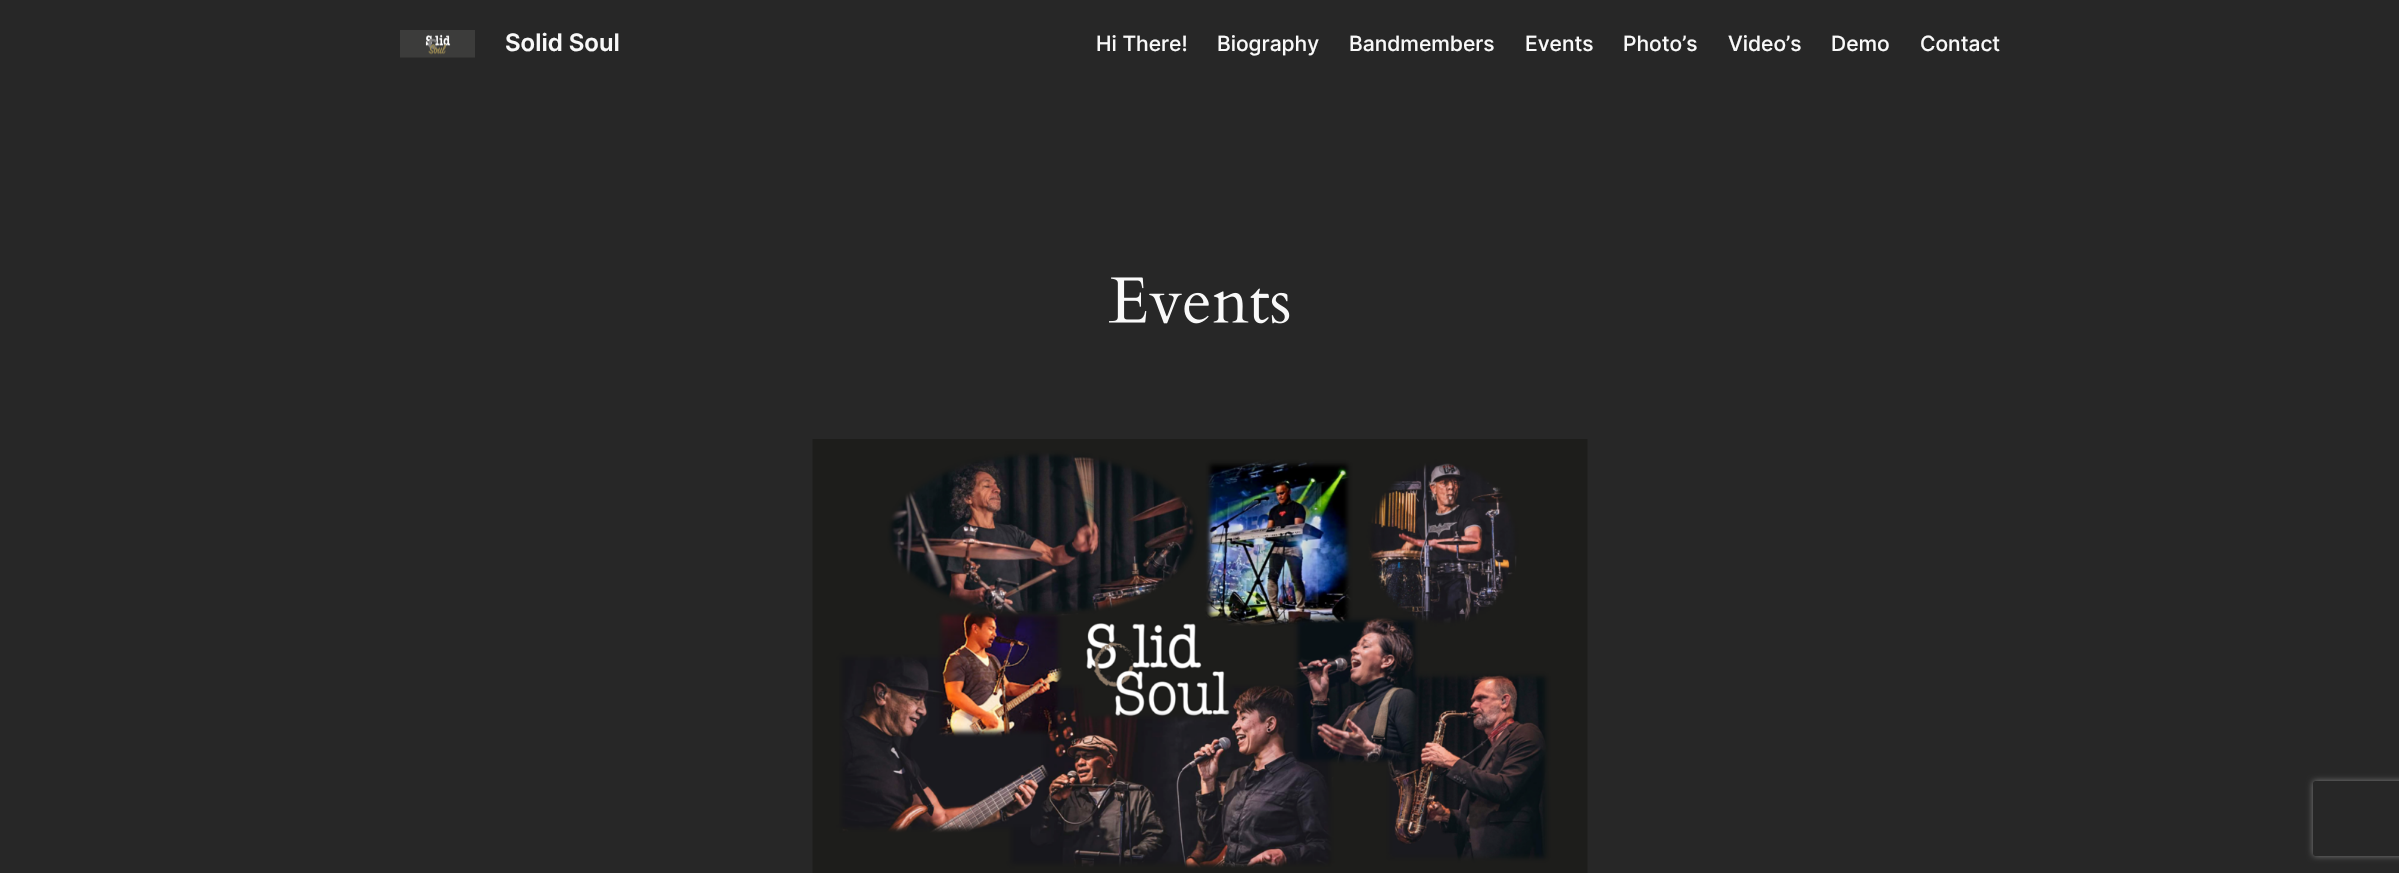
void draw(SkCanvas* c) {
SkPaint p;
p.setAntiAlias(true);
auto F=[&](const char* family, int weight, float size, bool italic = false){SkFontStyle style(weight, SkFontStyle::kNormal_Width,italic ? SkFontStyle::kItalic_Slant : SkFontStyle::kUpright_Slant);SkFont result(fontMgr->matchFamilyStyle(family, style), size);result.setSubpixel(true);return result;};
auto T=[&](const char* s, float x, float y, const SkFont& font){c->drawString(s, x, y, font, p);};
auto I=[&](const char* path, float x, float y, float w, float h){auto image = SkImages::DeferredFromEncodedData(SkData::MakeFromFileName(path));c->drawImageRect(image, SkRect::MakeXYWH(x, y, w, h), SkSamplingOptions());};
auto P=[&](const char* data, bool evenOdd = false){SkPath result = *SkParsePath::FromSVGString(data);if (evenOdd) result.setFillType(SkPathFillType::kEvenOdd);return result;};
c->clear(0xff272727);
I("1.png",400,30,75,28);
auto f1 = F("Inter",600,24);
p.setColor(0xfff9f9f9);
T("Solid Soul",505,51,f1);
auto f2 = F("Inter",500,21);
T("Hi There!",1096,51,f2);
T("Biography",1217,51,f2);
T("Bandmembers",1349,51,f2);
T("Events",1525,51,f2);
T("Photo’s",1623,51,f2);
T("Video’s",1728,51,f2);
T("Demo",1831,51,f2);
T("Contact",1920,51,f2);
I("2.png",1109,277,181,47);
I("3.png",812,439,776,434);
c->save();
c->clipPath(P("M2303 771h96v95h-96zm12.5 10h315c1.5 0 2.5 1 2.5 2.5v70c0 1.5-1 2.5-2.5 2.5h-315c-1.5 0-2.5-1-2.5-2.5v-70c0-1.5 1-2.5 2.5-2.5z",true),true);
p.setColor(0xff808080);
p.setMaskFilter(SkMaskFilter::MakeBlur(kNormal_SkBlurStyle, 3));
c->drawRoundRect(SkRect::MakeXYWH(2313,781,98,75),2.5,2.5,p);
p.setMaskFilter(nullptr);
c->restore();
}
